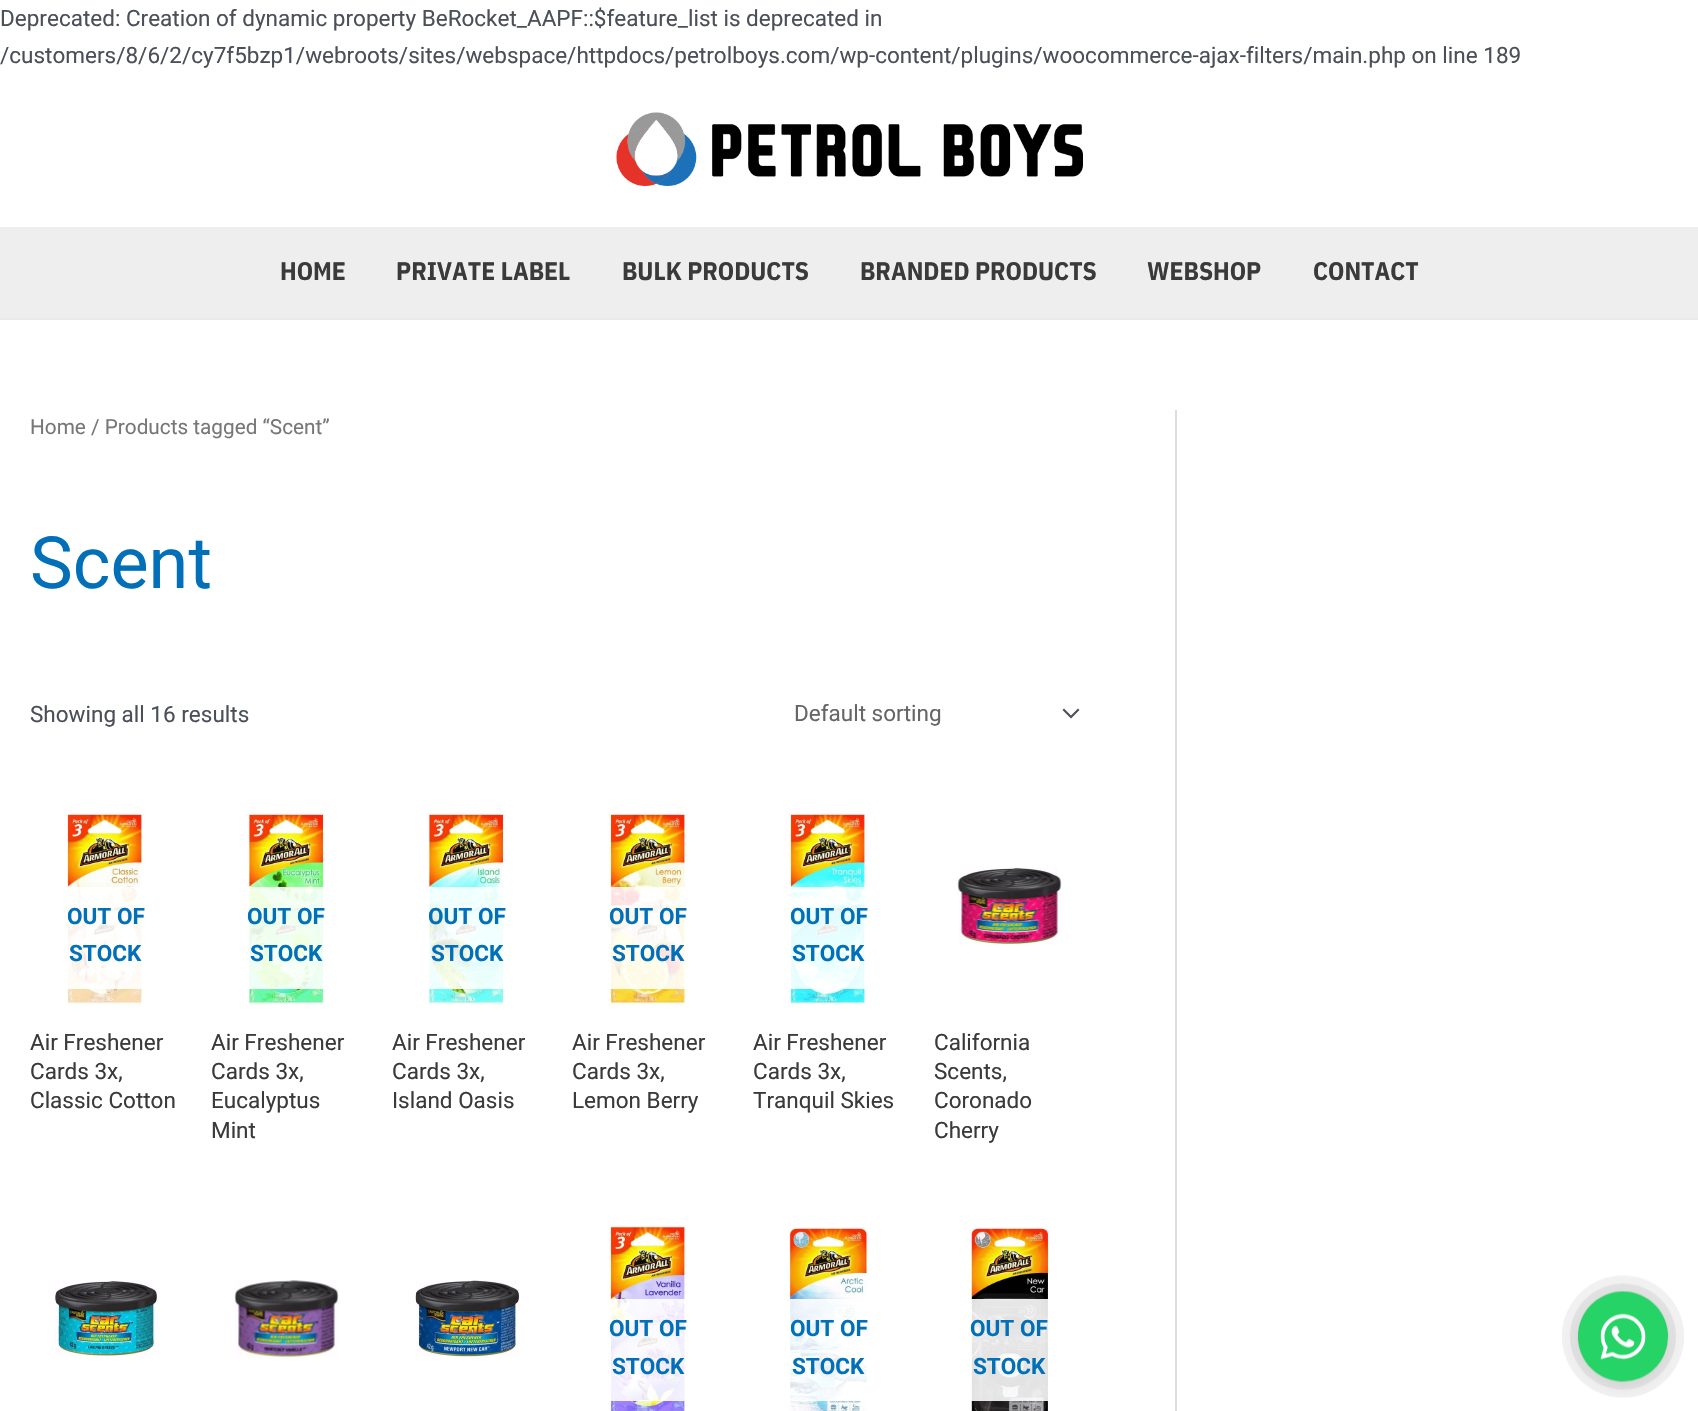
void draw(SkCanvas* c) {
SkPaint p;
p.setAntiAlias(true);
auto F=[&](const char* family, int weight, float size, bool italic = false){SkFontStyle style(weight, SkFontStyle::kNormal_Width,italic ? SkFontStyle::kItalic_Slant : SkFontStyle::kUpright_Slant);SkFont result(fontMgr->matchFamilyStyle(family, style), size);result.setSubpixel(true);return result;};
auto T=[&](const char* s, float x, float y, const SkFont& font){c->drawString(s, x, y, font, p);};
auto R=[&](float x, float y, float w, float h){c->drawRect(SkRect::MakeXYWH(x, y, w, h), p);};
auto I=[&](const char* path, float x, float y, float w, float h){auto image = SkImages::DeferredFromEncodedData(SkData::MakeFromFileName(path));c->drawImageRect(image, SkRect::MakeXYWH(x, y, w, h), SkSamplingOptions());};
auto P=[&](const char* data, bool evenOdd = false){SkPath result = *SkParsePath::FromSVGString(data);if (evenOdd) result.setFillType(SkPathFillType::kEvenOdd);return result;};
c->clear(0xffffffff);
auto f1 = F("Roboto",400,22.5);
p.setColor(0xff4b4f58);
T("Deprecated: Creation of dynamic property BeRocket_AAPF::$feature_list is deprecated in",0,26,f1);
T("/customers/8/6/2/cy7f5bzp1/webroots/sites/webspace/httpdocs/petrolboys.com/wp-content/plugins/woocommerce-ajax-filters/main.php on line 189",0,63,f1);
I("1.png",616,112,467,74);
p.setColor(0xffeeeeee);
R(0,227,1698,91);
p.setColor(0xffeaeaea);
R(0,318,1698,2);
auto f2 = F("IBM Plex Sans Condensed",700,25.5);
p.setColor(0xff3a3a3a);
T("HOME",280,280,f2);
T("PRIVATE LABEL",396,280,f2);
T("BULK PRODUCTS",622,280,f2);
T("BRANDED PRODUCTS",860,280,f2);
T("WEBSHOP",1147,280,f2);
T("CONTACT",1313,280,f2);
p.setColor(0xffdddddd);
R(1175,410,2,1001);
auto f3 = F("Roboto",400,20.75);
p.setColor(0xff777777);
T("Home / Products tagged “Scent”",30,434,f3);
auto f4 = F("Roboto",400,72);
p.setColor(0xff0170b9);
T("Scent",30,588,f4);
p.setColor(0xff4b4f58);
T("Showing all 16 results",30,722,f1);
c->drawPath(P("M1062.5 710l8.5 8.5l8.5-8.5l-1.5-1.5l-7 7l-7-7z"),p);
p.setColor(0xff666666);
T("Default sorting",794,721,f1);
I("2.png",64,812,86,194);
p.setColor(0xe0ffffff);
R(64,887,86,102);
auto f5 = F("Roboto",700,22.5);
p.setColor(0xff0170b9);
T("OUT OF",67,924,f5);
T("STOCK",69,961,f5);
p.setColor(0xff3a3a3a);
T("Air Freshener",30,1050,f1);
T("Cards 3x,",30,1079,f1);
T("Classic Cotton",30,1108,f1);
I("3.png",245,812,79,193);
p.setColor(0xe0ffffff);
R(245,887,79,102);
p.setColor(0xff0170b9);
T("OUT OF",247,924,f5);
T("STOCK",250,961,f5);
p.setColor(0xff3a3a3a);
T("Air Freshener",211,1050,f1);
T("Cards 3x,",211,1079,f1);
T("Eucalyptus",211,1108,f1);
T("Mint",211,1138,f1);
I("4.png",428,812,76,194);
p.setColor(0xe0ffffff);
R(428,887,76,102);
p.setColor(0xff0170b9);
T("OUT OF",428,924,f5);
T("STOCK",431,961,f5);
p.setColor(0xff3a3a3a);
T("Air Freshener",392,1050,f1);
T("Cards 3x,",392,1079,f1);
T("Island Oasis",392,1108,f1);
I("5.png",607,812,79,194);
p.setColor(0xe0ffffff);
R(607,887,79,102);
p.setColor(0xff0170b9);
T("OUT OF",609,924,f5);
T("STOCK",612,961,f5);
p.setColor(0xff3a3a3a);
T("Air Freshener",572,1050,f1);
T("Cards 3x,",572,1079,f1);
T("Lemon Berry",572,1108,f1);
I("6.png",789,812,76,194);
p.setColor(0xe0ffffff);
R(789,887,76,102);
p.setColor(0xff0170b9);
T("OUT OF",790,924,f5);
T("STOCK",792,961,f5);
p.setColor(0xff3a3a3a);
T("Air Freshener",753,1050,f1);
T("Cards 3x,",753,1079,f1);
T("Tranquil Skies",753,1108,f1);
I("7.png",957,867,105,80);
T("California",934,1050,f1);
T("Scents,",934,1079,f1);
T("Coronado",934,1108,f1);
T("Cherry",934,1138,f1);
I("8.png",54,1280,104,76);
I("9.png",234,1280,105,78);
I("10.png",415,1280,105,79);
I("11.png",609,1225,76,186);
p.setColor(0xe0ffffff);
R(609,1299,76,102);
p.setColor(0xff0170b9);
T("OUT OF",609,1336,f5);
T("STOCK",612,1374,f5);
I("12.png",787,1227,81,184);
p.setColor(0xe0ffffff);
R(787,1299,81,102);
p.setColor(0xff0170b9);
T("OUT OF",790,1336,f5);
T("STOCK",792,1374,f5);
I("13.png",968,1226,82,185);
p.setColor(0xe0ffffff);
R(971,1299,79,102);
p.setColor(0xff0170b9);
T("OUT OF",970,1336,f5);
T("STOCK",973,1374,f5);
I("14.png",1562,1275,122,123);
}
